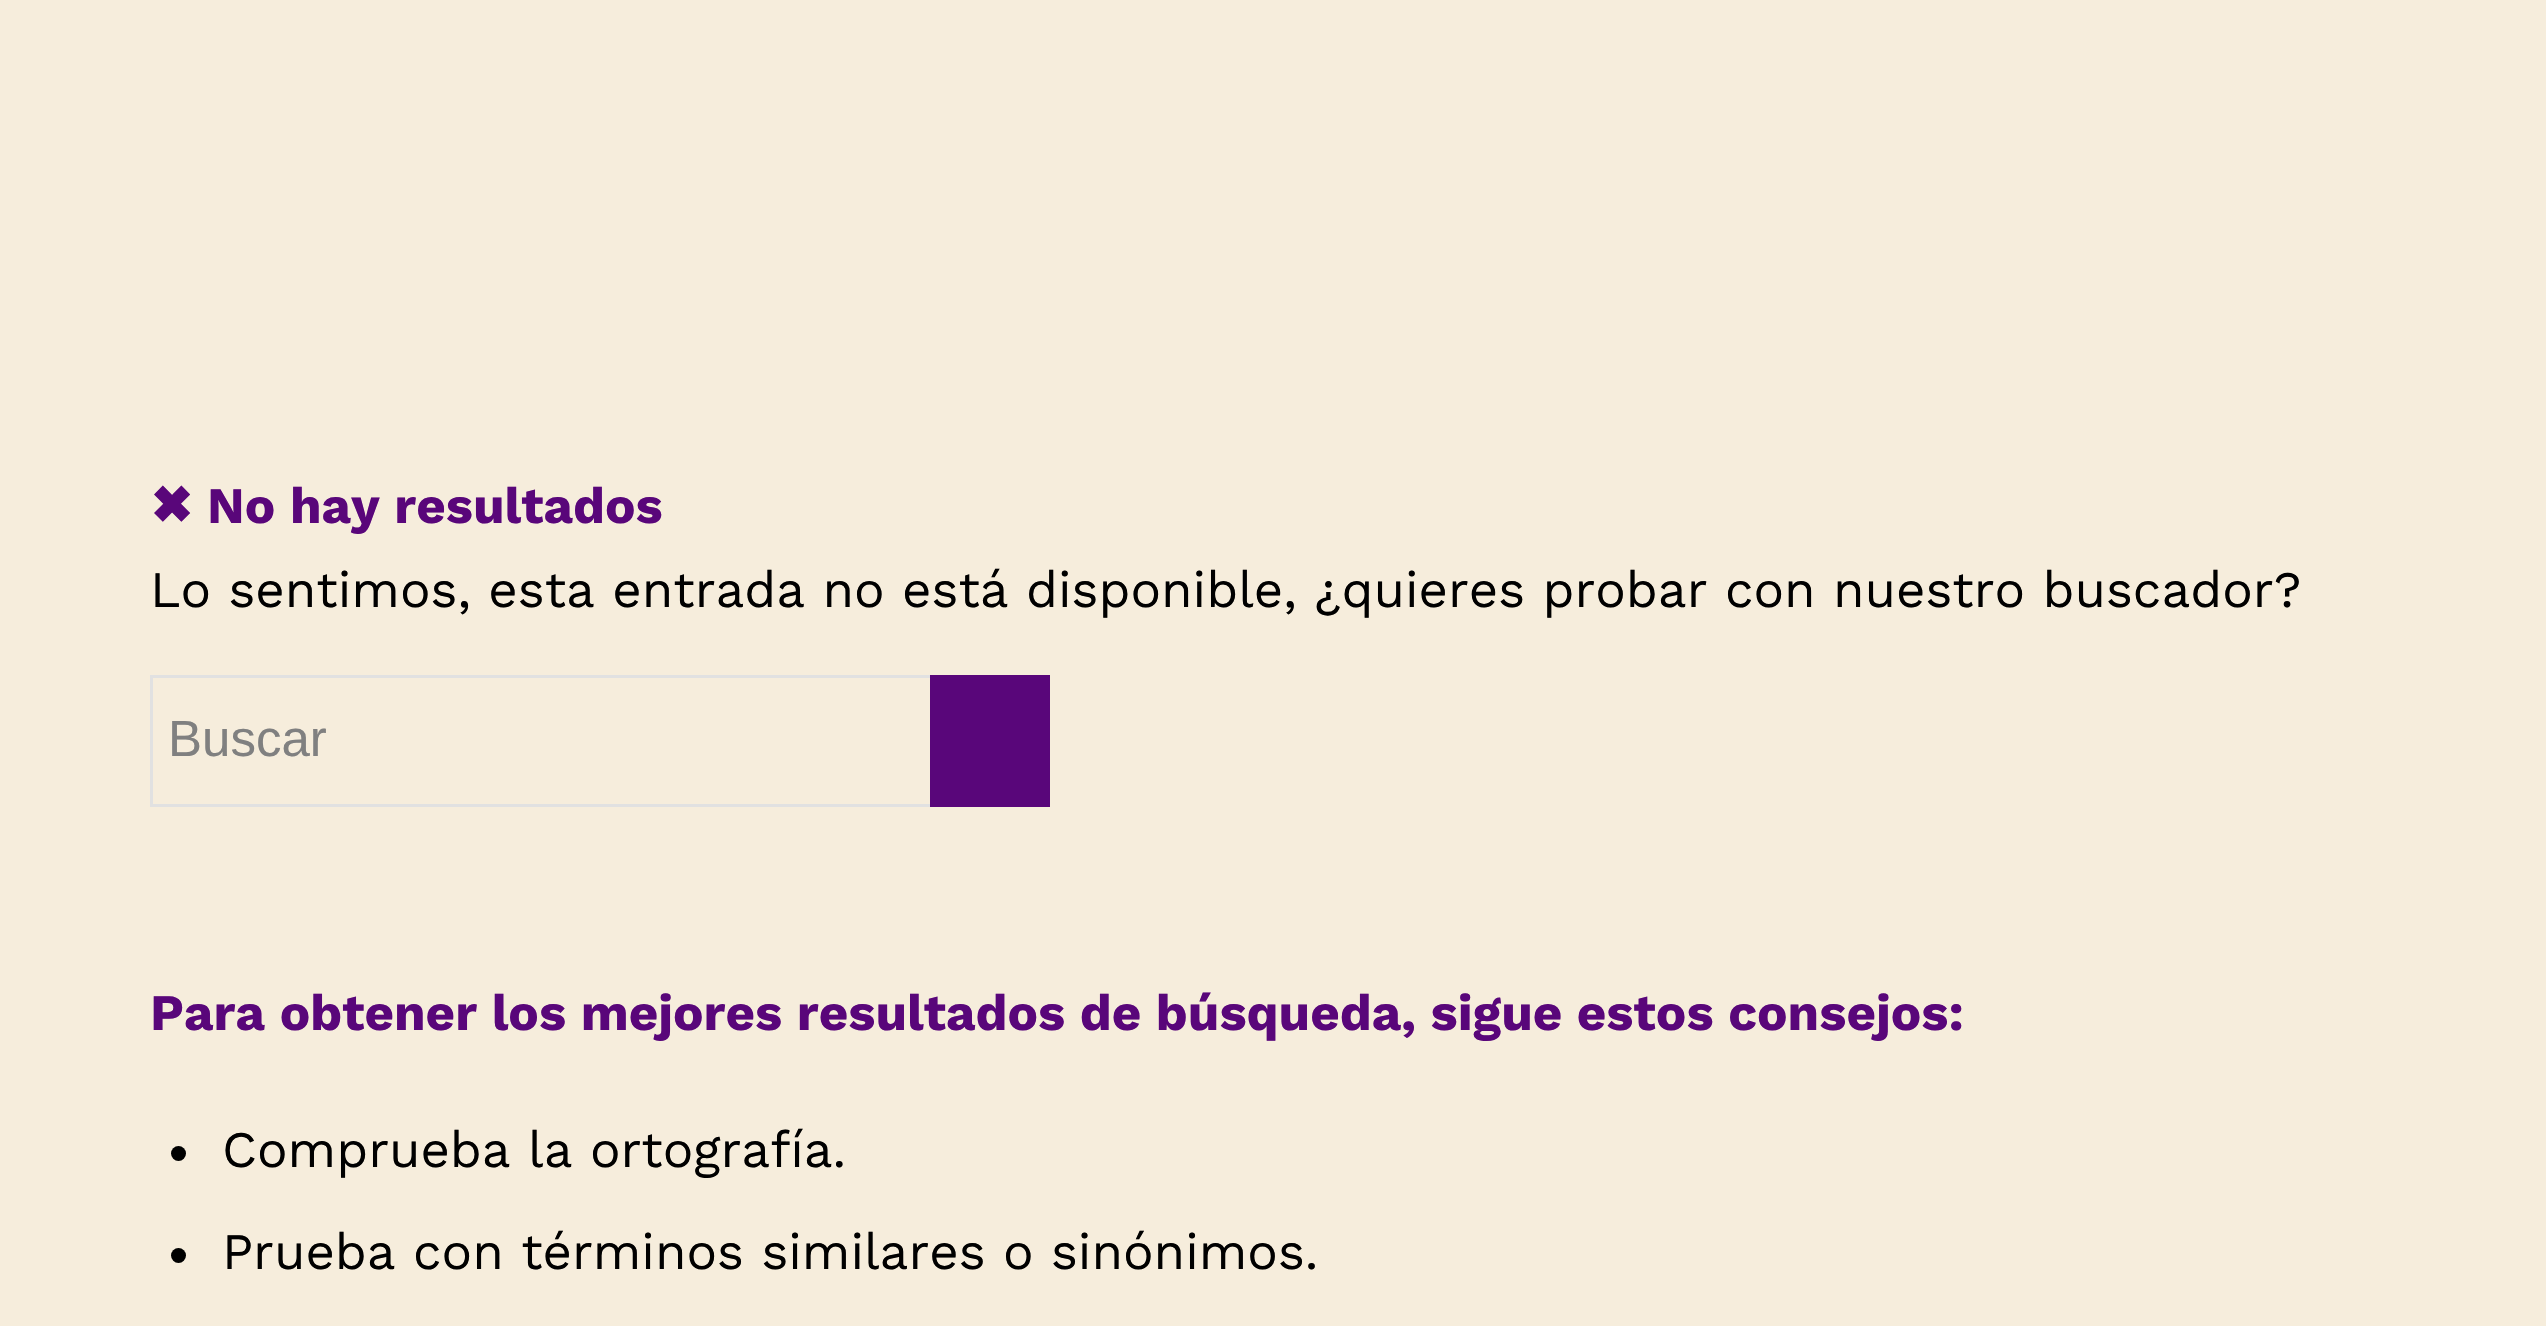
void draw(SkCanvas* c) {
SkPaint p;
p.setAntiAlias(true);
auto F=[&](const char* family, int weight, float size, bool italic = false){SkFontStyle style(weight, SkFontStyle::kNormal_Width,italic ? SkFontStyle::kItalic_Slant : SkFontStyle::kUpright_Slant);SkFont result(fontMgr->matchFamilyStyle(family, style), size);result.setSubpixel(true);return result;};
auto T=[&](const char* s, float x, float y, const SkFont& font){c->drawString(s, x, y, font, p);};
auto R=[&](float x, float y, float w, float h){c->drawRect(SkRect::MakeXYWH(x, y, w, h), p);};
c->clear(0xfff6eddc);
auto f1 = F("DejaVu Sans",700,51);
p.setColor(0xff59067a);
T("✖",150,523,f1);
auto f2 = F("Work Sans",700,51);
T("No hay resultados",207,523,f2);
auto f3 = F("Work Sans",400,51);
p.setColor(0xff000000);
T("Lo sentimos, esta entrada no está disponible, ¿quieres probar con nuestro buscador?",150,607,f3);
p.setStroke(true);
p.setStrokeWidth(3);
p.setColor(0xffe1e1e1);
c->drawRect(SkRect::MakeXYWH(151.5,676.5,897,129),p);
auto f4 = F("Liberation Sans",400,51);
p.setStroke(false);
p.setColor(0xff808080);
T("Buscar",168,756,f4);
p.setColor(0xff59067a);
R(930,675,120,132);
T("Para obtener los mejores resultados de búsqueda, sigue estos consejos:",150,1030,f2);
p.setColor(0xff000000);
c->drawCircle(178.5,1153.5,7.5,p);
T("Comprueba la ortografía.",222,1167,f3);
c->drawCircle(178.5,1255.5,7.5,p);
T("Prueba con términos similares o sinónimos.",222,1269,f3);
}
